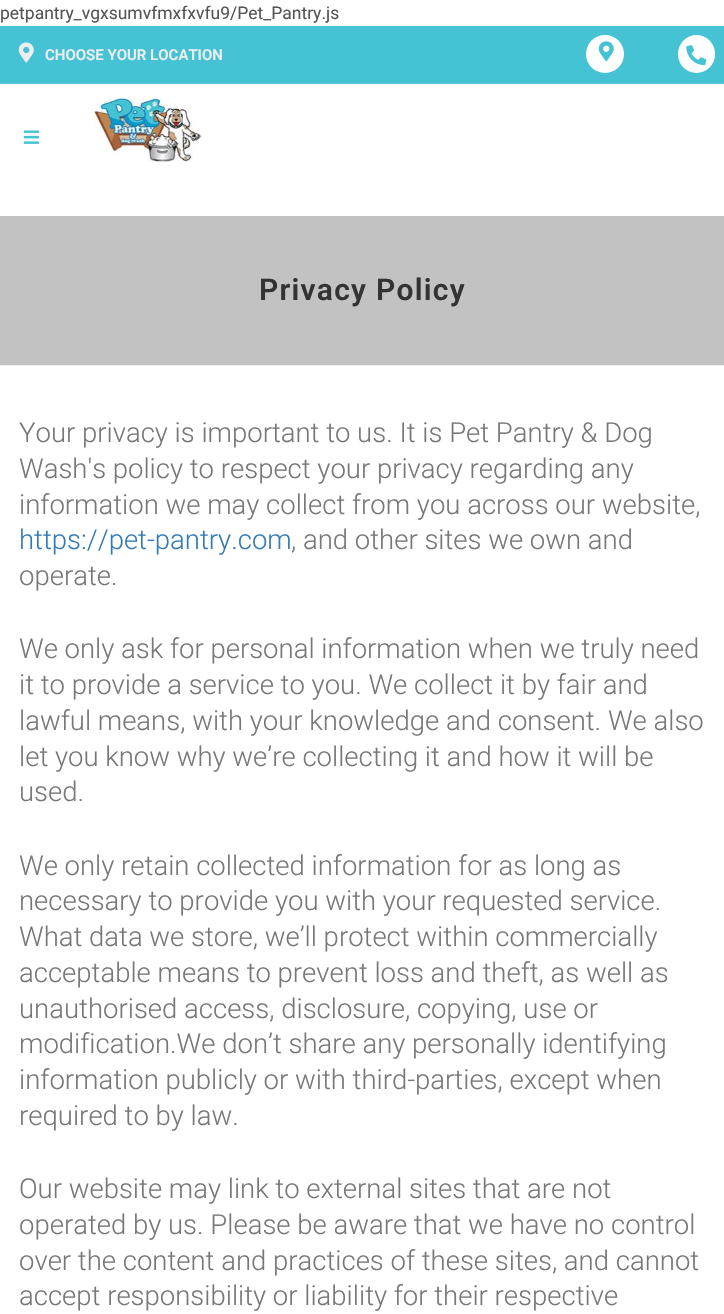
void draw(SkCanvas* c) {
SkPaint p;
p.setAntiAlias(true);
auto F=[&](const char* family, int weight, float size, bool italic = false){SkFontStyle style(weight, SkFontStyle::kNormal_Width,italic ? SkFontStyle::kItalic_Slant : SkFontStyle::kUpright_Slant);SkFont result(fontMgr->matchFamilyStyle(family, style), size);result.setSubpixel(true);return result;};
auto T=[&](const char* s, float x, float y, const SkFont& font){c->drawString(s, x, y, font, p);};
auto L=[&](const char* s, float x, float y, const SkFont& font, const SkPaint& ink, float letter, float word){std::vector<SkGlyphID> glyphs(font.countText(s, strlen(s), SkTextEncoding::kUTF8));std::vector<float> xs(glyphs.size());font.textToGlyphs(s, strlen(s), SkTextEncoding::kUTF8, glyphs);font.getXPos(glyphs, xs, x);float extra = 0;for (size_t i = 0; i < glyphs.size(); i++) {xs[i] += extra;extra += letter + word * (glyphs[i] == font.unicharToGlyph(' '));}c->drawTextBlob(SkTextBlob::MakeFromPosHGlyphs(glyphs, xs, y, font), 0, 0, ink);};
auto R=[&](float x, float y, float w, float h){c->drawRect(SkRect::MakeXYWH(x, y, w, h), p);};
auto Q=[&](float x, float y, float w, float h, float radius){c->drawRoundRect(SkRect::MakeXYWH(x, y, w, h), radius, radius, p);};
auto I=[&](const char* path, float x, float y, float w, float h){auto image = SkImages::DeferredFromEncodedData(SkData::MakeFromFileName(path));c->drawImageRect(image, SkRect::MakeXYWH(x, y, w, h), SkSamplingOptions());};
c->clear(0xffffffff);
auto f1 = F("Roboto",400,17.5);
p.setColor(0xff555555);
T("petpantry_vgxsumvfmxfxvfu9/Pet_Pantry.js",0,19,f1);
p.setColor(0xff45c3d4);
R(0,26,724,57);
p.setColor(0xff58c9d8);
R(0,83,724,1);
I("1.png",18,42,16,21);
auto f2 = F("Roboto",600,15);
p.setColor(0xffeeeeee);
T("CHOOSE YOUR LOCATION",45,60,f2);
p.setColor(0xffffffff);
c->drawCircle(605,54,19,p);
I("2.png",598,41,16,21);
Q(678,35,37,38,18.5);
I("3.png",686,45,21,21);
I("4.png",23,130,17,14);
I("5.png",93,98,109,64);
p.setColor(0xffc2c2c2);
R(0,216,724,149);
p.setColor(0xffeeeeee);
R(0,365,724,1);
auto f3 = F("Roboto",600,30);
p.setColor(0xff333333);
L("Privacy Policy",259,300,f3,p,1.25,0);
auto f4 = F("Roboto",300,27.5);
p.setColor(0xff777777);
T("Your privacy is important to us. It is Pet Pantry & Dog",19,442,f4);
T("Wash's policy to respect your privacy regarding any",19,478,f4);
T("information we may collect from you across our website,",19,514,f4);
p.setColor(0xff337ab7);
T("https://pet-pantry.com",19,549,f4);
p.setColor(0xff777777);
T(", and other sites we own and",291,549,f4);
T("operate.",19,585,f4);
T("We only ask for personal information when we truly need",19,658,f4);
T("it to provide a service to you. We collect it by fair and",19,694,f4);
T("lawful means, with your knowledge and consent. We also",19,730,f4);
T("let you know why we’re collecting it and how it will be",19,766,f4);
T("used.",19,801,f4);
T("We only retain collected information for as long as",19,875,f4);
T("necessary to provide you with your requested service.",19,910,f4);
T("What data we store, we’ll protect within commercially",19,946,f4);
T("acceptable means to prevent loss and theft, as well as",19,982,f4);
T("unauthorised access, disclosure, copying, use or",19,1018,f4);
T("modification.We don’t share any personally identifying",19,1053,f4);
T("information publicly or with third-parties, except when",19,1089,f4);
T("required to by law.",19,1125,f4);
T("Our website may link to external sites that are not",19,1198,f4);
T("operated by us. Please be aware that we have no control",19,1234,f4);
T("over the content and practices of these sites, and cannot",19,1270,f4);
T("accept responsibility or liability for their respective",19,1305,f4);
}
